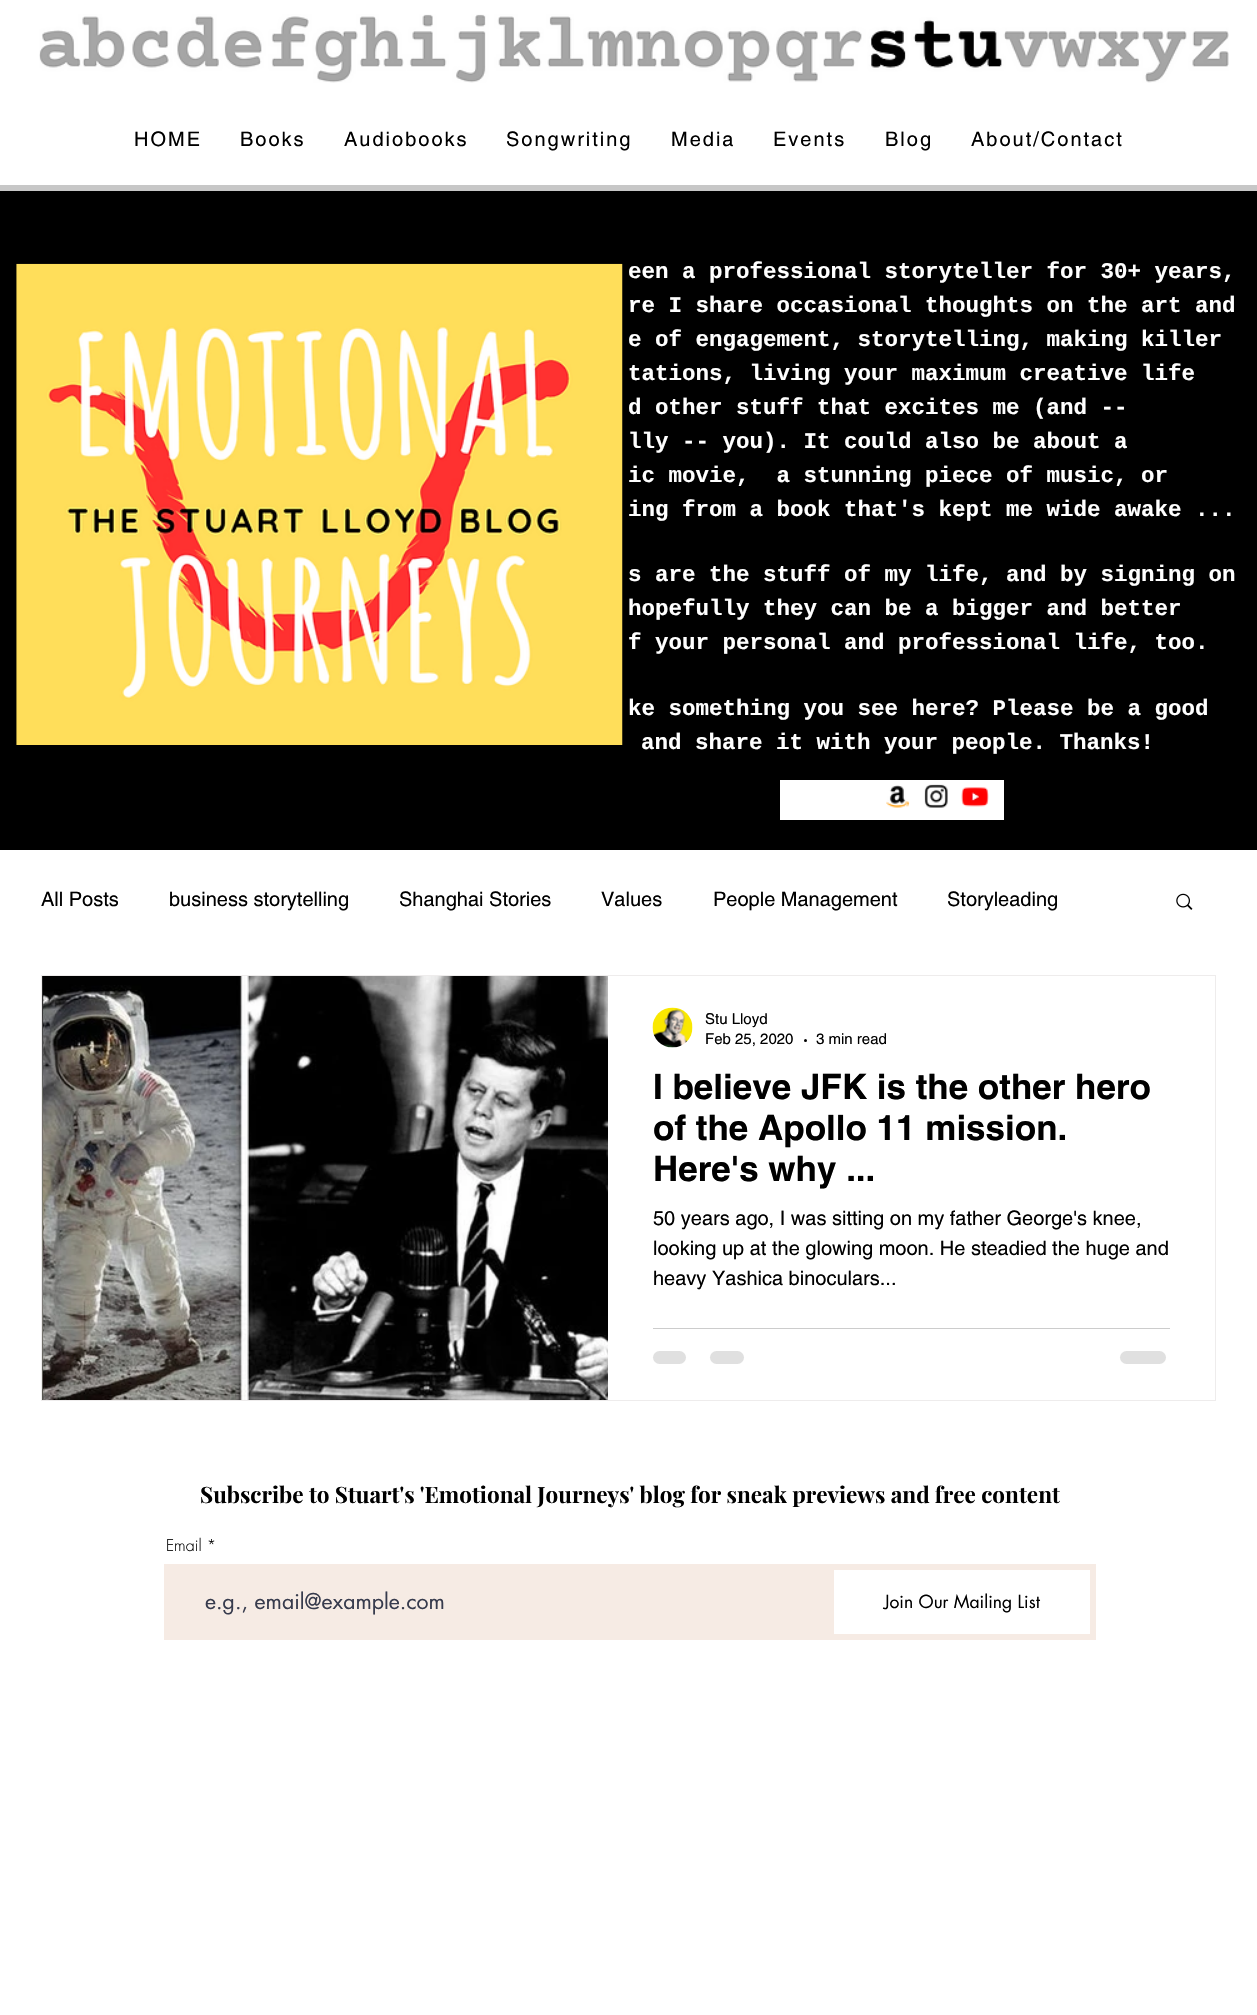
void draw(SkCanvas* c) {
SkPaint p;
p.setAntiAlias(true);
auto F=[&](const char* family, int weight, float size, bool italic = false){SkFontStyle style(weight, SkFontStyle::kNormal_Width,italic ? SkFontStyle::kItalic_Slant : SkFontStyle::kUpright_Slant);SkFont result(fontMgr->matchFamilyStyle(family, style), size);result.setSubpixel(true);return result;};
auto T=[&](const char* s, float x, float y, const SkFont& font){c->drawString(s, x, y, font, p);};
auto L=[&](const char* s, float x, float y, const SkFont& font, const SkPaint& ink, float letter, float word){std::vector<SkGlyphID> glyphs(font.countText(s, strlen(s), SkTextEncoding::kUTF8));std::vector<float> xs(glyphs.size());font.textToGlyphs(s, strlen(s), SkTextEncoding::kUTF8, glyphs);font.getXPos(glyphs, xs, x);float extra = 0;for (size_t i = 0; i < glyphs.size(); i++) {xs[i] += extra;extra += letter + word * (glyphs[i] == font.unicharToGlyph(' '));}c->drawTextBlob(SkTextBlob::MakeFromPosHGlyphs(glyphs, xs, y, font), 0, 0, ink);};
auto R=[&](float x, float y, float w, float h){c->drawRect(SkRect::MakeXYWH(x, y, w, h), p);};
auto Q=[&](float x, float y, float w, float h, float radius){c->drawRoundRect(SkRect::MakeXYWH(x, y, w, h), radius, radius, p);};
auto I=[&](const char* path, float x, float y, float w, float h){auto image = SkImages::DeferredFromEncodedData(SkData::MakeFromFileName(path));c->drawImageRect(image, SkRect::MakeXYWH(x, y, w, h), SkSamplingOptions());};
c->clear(0xffffffff);
I("1.png",39,14,1190,69);
auto f1 = F("helvetica",400,20);
p.setColor(0xff000000);
L("HOME",134,146,f1,p,2,0);
L("Books",240,146,f1,p,2,0);
L("Audiobooks",344,146,f1,p,2,0);
L("Songwriting",506,146,f1,p,2,0);
L("Media",671,146,f1,p,2,0);
L("Events",773,146,f1,p,2,0);
L("Blog",885,146,f1,p,2,0);
L("About/Contact",971,146,f1,p,2,0);
p.setColor(0xffc7c7c7);
R(0,185,1257,6);
p.setColor(0xff000000);
R(0,191,1257,659);
I("2.png",16,263,607,482);
auto f2 = F("Liberation Mono",700,22.5);
p.setColor(0xffffffff);
T("een a professional storyteller for 30+ years,",628,278,f2);
T("re I share occasional thoughts on the art and",628,312,f2);
T("e of engagement, storytelling, making killer",628,346,f2);
T("tations, living your maximum creative life",628,380,f2);
T("d other stuff that excites me (and --",628,414,f2);
T("lly -- you). It could also be about a",628,448,f2);
T("ic movie,  a stunning piece of music, or",628,482,f2);
T("ing from a book that's kept me wide awake ...",628,516,f2);
T("s are the stuff of my life, and by signing on",628,581,f2);
T("hopefully they can be a bigger and better",628,615,f2);
T("f your personal and professional life, too.",628,649,f2);
T("ke something you see here? Please be a good",628,715,f2);
T("and share it with your people. Thanks!",641,749,f2);
R(780,780,224,40);
I("3.png",886,785,24,23);
I("4.png",924,784,24,24);
I("5.png",961,787,28,20);
p.setColor(0xff000000);
T("All Posts",41,906,f1);
T("business storytelling",169,906,f1);
T("Shanghai Stories",399,906,f1);
T("Values",601,906,f1);
T("People Management",713,906,f1);
T("Storyleading",947,906,f1);
I("6.png",1176,893,17,17);
p.setStroke(true);
p.setStrokeWidth(1);
p.setColor(0xffeeecec);
c->drawRect(SkRect::MakeXYWH(41.5,975.5,1174,425),p);
I("7.png",42,976,1,424);
I("8.png",43,976,565,424);
I("9.png",652,1007,41,41);
auto f3 = F("helvetica",400,15);
p.setStroke(false);
p.setColor(0xff000000);
T("Stu Lloyd",705,1024,f3);
T("Feb 25, 2020",705,1044,f3);
c->drawCircle(805.5,1040.5,1.5,p);
T("3 min read",816,1044,f3);
auto f4 = F("helvetica",700,35);
T("I believe JFK is the other hero",653,1099,f4);
T("of the Apollo 11 mission.",653,1140,f4);
T("Here's why ...",653,1181,f4);
T("50 years ago, I was sitting on my father George's knee,",653,1225,f1);
T("looking up at the glowing moon. He steadied the huge and",653,1255,f1);
T("heavy Yashica binoculars...",653,1285,f1);
p.setColor(0xffcccccc);
R(653,1328,517,1);
p.setColor(0xffe0e0e0);
Q(653,1351,33,13,6.5);
Q(710,1351,34,13,6.5);
Q(1120,1351,46,13,6.5);
auto f5 = F("Playfair Display",700,22.5);
p.setColor(0xff000000);
T("Subscribe to Stuart's 'Emotional Journeys' blog for sneak previews and free content",200,1503,f5);
auto f6 = F("futura",300,16);
T("Email *",166,1551,f6);
p.setColor(0xfff6ebe4);
R(164,1564,664,76);
auto f7 = F("futura",400,21.25);
p.setColor(0xff373b4d);
T("e.g., email@example.com",205,1609,f7);
p.setStroke(true);
p.setStrokeWidth(6);
p.setColor(0xfff6ebe4);
c->drawRect(SkRect::MakeXYWH(831,1567,262,70),p);
auto f8 = F("futura",400,17.5);
p.setStroke(false);
p.setColor(0xff000000);
T("Join Our Mailing List",884,1608,f8);
}
